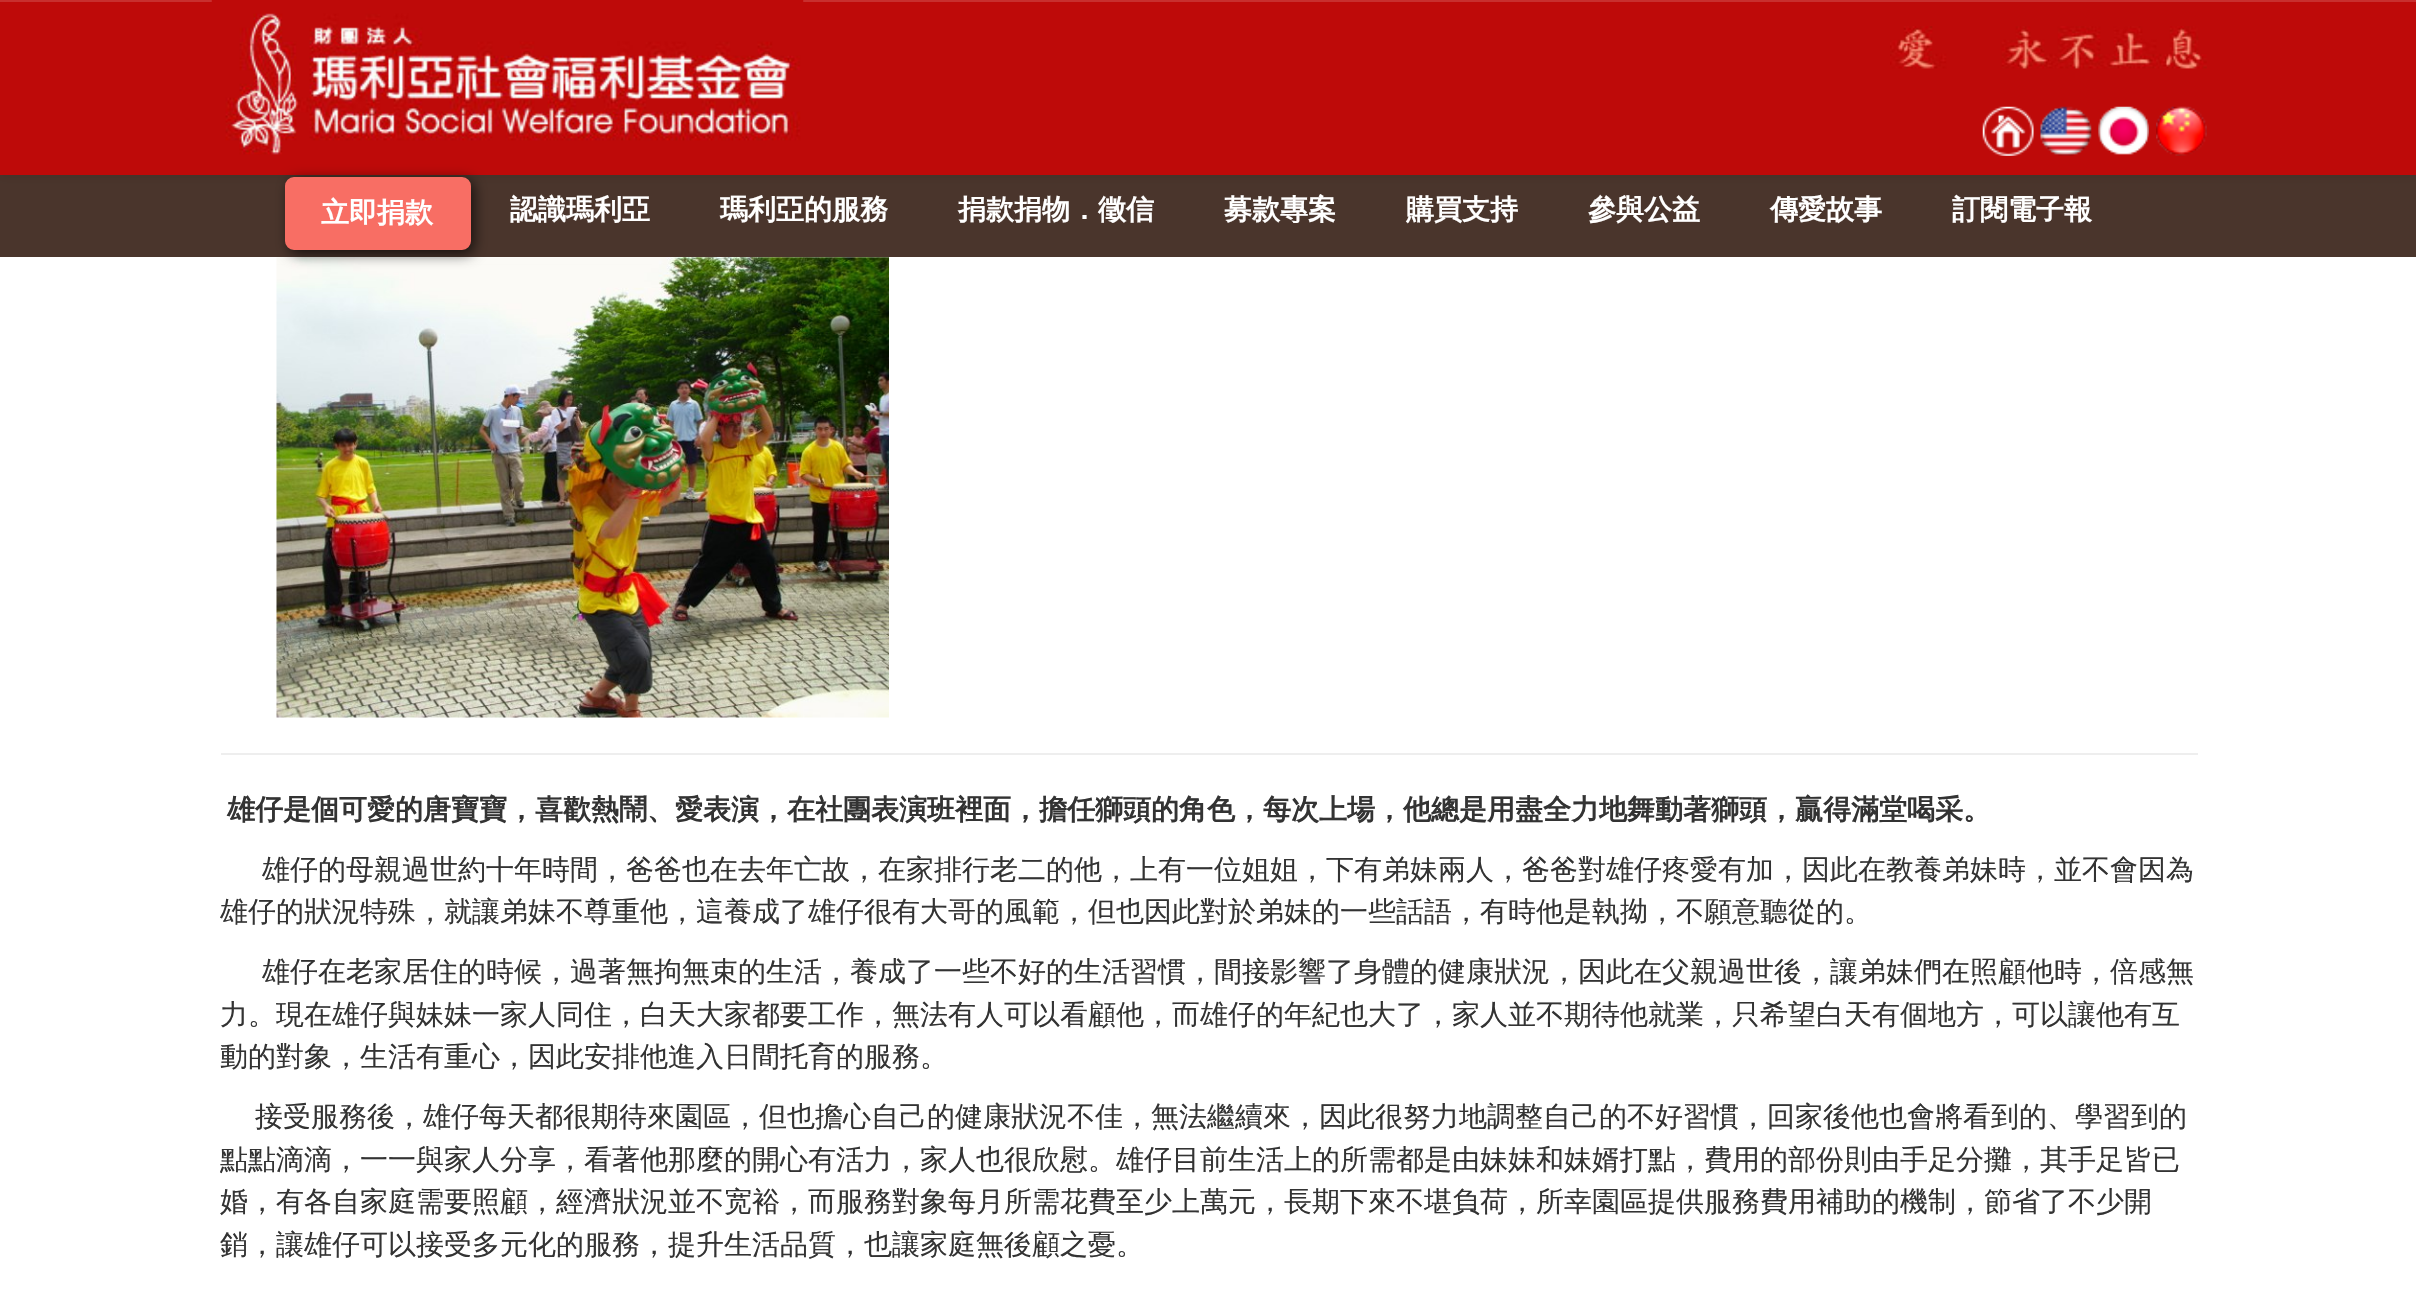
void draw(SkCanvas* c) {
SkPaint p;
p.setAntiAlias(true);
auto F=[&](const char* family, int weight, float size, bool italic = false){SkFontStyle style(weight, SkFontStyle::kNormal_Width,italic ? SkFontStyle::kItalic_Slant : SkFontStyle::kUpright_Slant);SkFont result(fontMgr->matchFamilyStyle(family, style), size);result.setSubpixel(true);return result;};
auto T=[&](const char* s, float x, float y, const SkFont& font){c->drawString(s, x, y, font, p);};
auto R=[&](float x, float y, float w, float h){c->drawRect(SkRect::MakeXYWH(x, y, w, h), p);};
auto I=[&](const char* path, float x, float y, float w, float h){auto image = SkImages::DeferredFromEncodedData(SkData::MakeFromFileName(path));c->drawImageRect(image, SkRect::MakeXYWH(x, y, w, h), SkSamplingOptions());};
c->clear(0xffffffff);
p.setColor(0xff4a352c);
R(0,175,2416,82);
p.setColor(0x12000000);
p.setMaskFilter(SkMaskFilter::MakeBlur(kNormal_SkBlurStyle, 4.5));
c->drawRect(SkRect::MakeXYWH(0,2,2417,175),p);
p.setMaskFilter(nullptr);
p.setColor(0xffbe0a09);
R(0,2,2416,173);
p.setColor(0xffc82f2e);
R(0,0,2416,2);
I("1.png",211,0,593,155);
I("2.png",1890,26,317,43);
I("3.png",1982,106,52,50);
I("4.png",2040,106,52,50);
I("5.png",2098,106,51,49);
I("6.png",2156,106,51,50);
I("7.png",276,257,613,461);
p.setColor(0xb3000000);
p.setMaskFilter(SkMaskFilter::MakeBlur(kNormal_SkBlurStyle, 7));
c->drawRoundRect(SkRect::MakeXYWH(289,180,185,74),9,9,p);
p.setMaskFilter(nullptr);
p.setColor(0xfff86e64);
c->drawRoundRect(SkRect::MakeXYWH(286,178,184,71),8,8,p);
p.setStroke(true);
p.setStrokeWidth(2);
c->drawRoundRect(SkRect::MakeXYWH(286,178,184,71),8,8,p);
auto f1 = F("WenQuanYi Zen Hei",700,28);
p.setStroke(false);
p.setColor(0xffffffff);
T("立即捐款",321,222,f1);
T("認識瑪利亞",510,219,f1);
T("瑪利亞的服務",720,219,f1);
T("捐款捐物．徵信",958,219,f1);
T("募款專案",1224,219,f1);
T("購買支持",1406,219,f1);
T("參與公益",1588,219,f1);
T("傳愛故事",1770,219,f1);
T("訂閱電子報",1952,219,f1);
p.setColor(0xffeeeeee);
R(221,753,1977,2);
p.setColor(0xff333333);
T("雄仔是個可愛的唐寶寶，喜歡熱鬧、愛表演，在社團表演班裡面，擔任獅頭的角色，每次上場，他總是用盡全力地舞動著獅頭，贏得滿堂喝采。",227,819,f1);
auto f2 = F("WenQuanYi Zen Hei",500,28);
T("雄仔的母親過世約十年時間，爸爸也在去年亡故，在家排行老二的他，上有一位姐姐，下有弟妹兩人，爸爸對雄仔疼愛有加，因此在教養弟妹時，並不會因為",262,879,f2);
T("雄仔的狀況特殊，就讓弟妹不尊重他，這養成了雄仔很有大哥的風範，但也因此對於弟妹的一些話語，有時他是執拗，不願意聽從的。",220,921,f2);
T("雄仔在老家居住的時候，過著無拘無束的生活，養成了一些不好的生活習慣，間接影響了身體的健康狀況，因此在父親過世後，讓弟妹們在照顧他時，倍感無",262,981,f2);
T("力。現在雄仔與妹妹一家人同住，白天大家都要工作，無法有人可以看顧他，而雄仔的年紀也大了，家人並不期待他就業，只希望白天有個地方，可以讓他有互",220,1024,f2);
T("動的對象，生活有重心，因此安排他進入日間托育的服務。",220,1066,f2);
T("接受服務後，雄仔每天都很期待來園區，但也擔心自己的健康狀況不佳，無法繼續來，因此很努力地調整自己的不好習慣，回家後他也會將看到的、學習到的",255,1126,f2);
T("點點滴滴，一一與家人分享，看著他那麼的開心有活力，家人也很欣慰。雄仔目前生活上的所需都是由妹妹和妹婿打點，費用的部份則由手足分攤，其手足皆已",220,1169,f2);
T("婚，有各自家庭需要照顧，經濟狀況並不宽裕，而服務對象每月所需花費至少上萬元，長期下來不堪負荷，所幸園區提供服務費用補助的機制，節省了不少開",220,1211,f2);
T("銷，讓雄仔可以接受多元化的服務，提升生活品質，也讓家庭無後顧之憂。",220,1254,f2);
}
